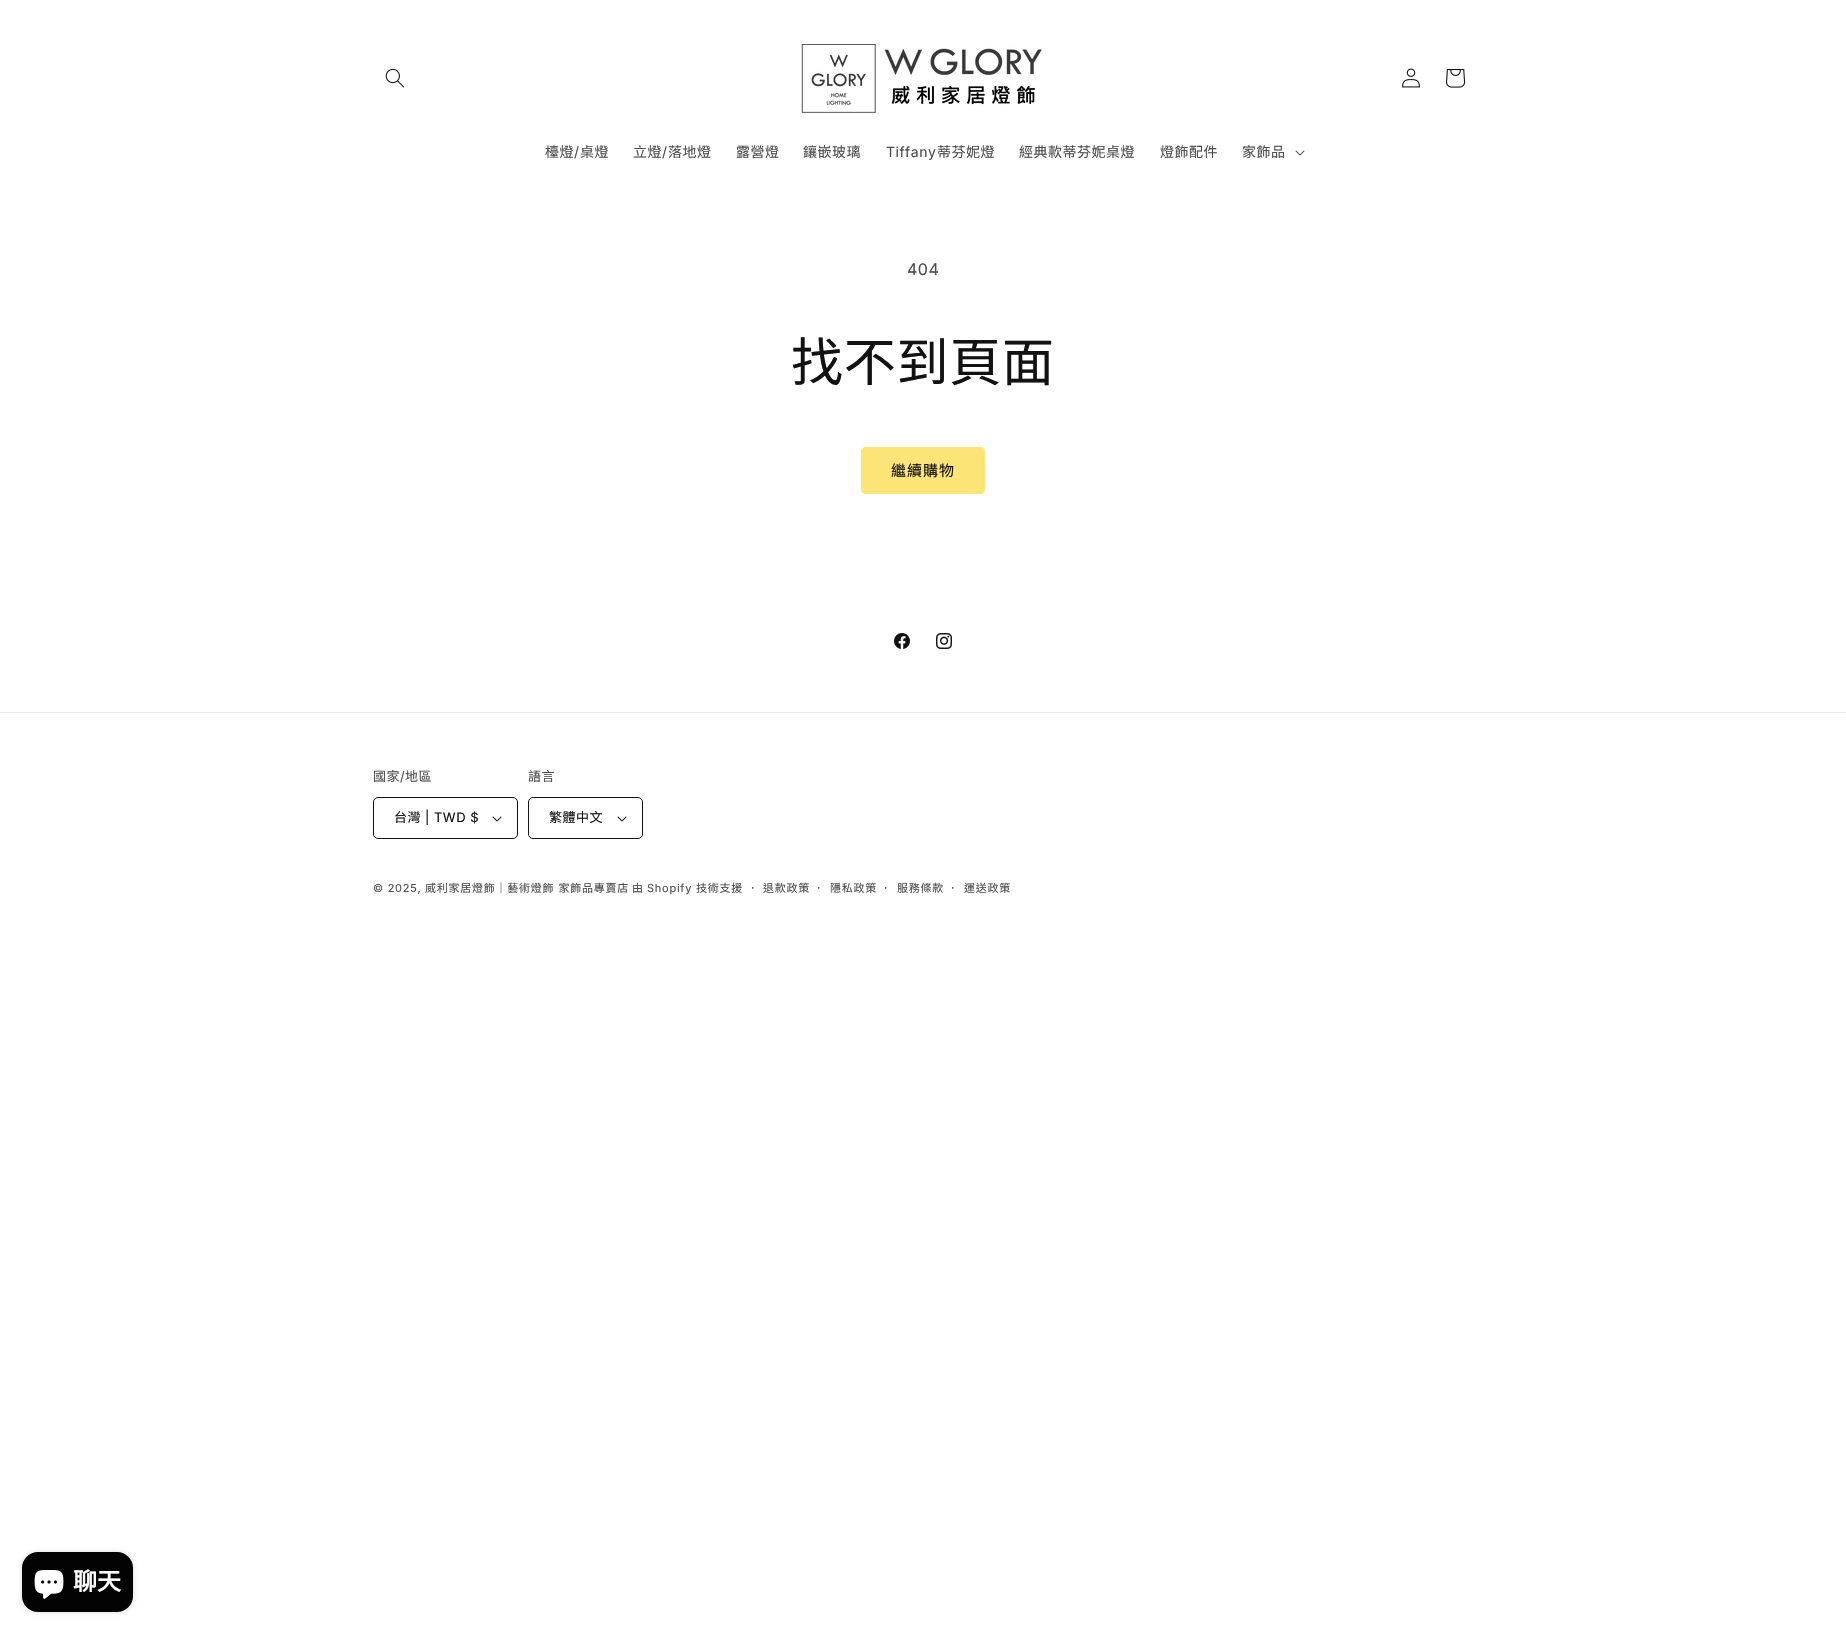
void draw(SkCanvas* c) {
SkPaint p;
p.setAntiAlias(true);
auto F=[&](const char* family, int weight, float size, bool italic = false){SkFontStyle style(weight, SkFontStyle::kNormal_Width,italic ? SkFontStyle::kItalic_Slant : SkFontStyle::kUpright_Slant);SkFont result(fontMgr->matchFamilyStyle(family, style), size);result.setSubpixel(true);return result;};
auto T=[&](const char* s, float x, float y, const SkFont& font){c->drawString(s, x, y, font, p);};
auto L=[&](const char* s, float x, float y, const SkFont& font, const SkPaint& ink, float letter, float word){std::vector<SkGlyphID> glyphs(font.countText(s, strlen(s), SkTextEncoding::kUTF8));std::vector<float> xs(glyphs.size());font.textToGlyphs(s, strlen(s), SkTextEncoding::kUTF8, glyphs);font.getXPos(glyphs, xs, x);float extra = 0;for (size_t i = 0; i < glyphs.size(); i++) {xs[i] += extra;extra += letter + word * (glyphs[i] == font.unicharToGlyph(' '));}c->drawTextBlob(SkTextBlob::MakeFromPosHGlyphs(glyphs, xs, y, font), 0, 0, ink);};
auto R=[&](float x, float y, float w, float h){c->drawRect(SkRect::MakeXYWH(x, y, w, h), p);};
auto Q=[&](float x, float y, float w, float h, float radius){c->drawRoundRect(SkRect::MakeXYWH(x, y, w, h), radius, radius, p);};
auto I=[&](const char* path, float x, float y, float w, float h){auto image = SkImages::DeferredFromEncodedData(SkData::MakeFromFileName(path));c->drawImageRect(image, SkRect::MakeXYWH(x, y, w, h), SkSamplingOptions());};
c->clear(0xffffffff);
I("1.png",385,68,19,20);
I("2.png",801,44,241,69);
I("3.png",1402,68,18,20);
I("4.png",1446,69,20,19);
auto f1 = F("Noto Sans CJK TC",400,14);
p.setColor(0xff4d4d4d);
L("檯燈",545,157,f1,p,.5,0);
auto f2 = F("Inter",400,14);
L("/",574,157,f2,p,.5,0);
L("桌燈",580,157,f1,p,.5,0);
L("立燈",633,157,f1,p,.5,0);
L("/",662,157,f2,p,.5,0);
L("落地燈",668,157,f1,p,.5,0);
L("露營燈",736,157,f1,p,.5,0);
L("鑲嵌玻璃",803,157,f1,p,.5,0);
L("Tiffany",886,157,f2,p,.5,0);
L("蒂芬妮燈",937,157,f1,p,.5,0);
L("經典款蒂芬妮桌燈",1019,157,f1,p,.5,0);
L("燈飾配件",1160,157,f1,p,.5,0);
L("家飾品",1242,157,f1,p,.5,0);
I("5.png",1295,150,10,6);
auto f3 = F("Inter",400,16);
L("404",907,275,f3,p,.5,0);
auto f4 = F("Noto Sans CJK TC",400,52);
p.setColor(0xff121212);
L("找不到頁面",791,381,f4,p,.75,0);
p.setColor(0xfffce477);
Q(861,447,124,47,5);
p.setStroke(true);
p.setStrokeWidth(1);
c->drawRoundRect(SkRect::MakeXYWH(861.5,447.5,123,46),4.5,4.5,p);
auto f5 = F("Noto Sans CJK TC",400,15);
p.setStroke(false);
p.setColor(0xff121212);
L("繼續購物",891,476,f5,p,1,0);
I("6.png",894,633,16,16);
I("7.png",936,633,16,16);
p.setColor(0xffececec);
R(0,712,1846,1);
auto f6 = F("Noto Sans CJK TC",400,13);
p.setColor(0xff4d4d4d);
L("國家",373,781,f6,p,.5,0);
auto f7 = F("Inter",400,13);
L("/",400,781,f7,p,.5,0);
L("地區",405,781,f6,p,.5,0);
I("8.png",492,816,10,6);
p.setStroke(true);
p.setColor(0xff121212);
c->drawRoundRect(SkRect::MakeXYWH(373.5,797.5,144,41),4.5,4.5,p);
p.setStroke(false);
L("台灣",394,822,f6,p,.5,0);
L("| TWD $",425,822,f7,p,.5,0);
p.setColor(0xff4d4d4d);
L("語言",528,781,f6,p,.5,0);
I("8.png",617,816,10,6);
p.setStroke(true);
p.setColor(0xff121212);
c->drawRoundRect(SkRect::MakeXYWH(528.5,797.5,114,41),4.5,4.5,p);
p.setStroke(false);
L("繁體中文",549,822,f6,p,.5,0);
auto f8 = F("Inter",400,11);
p.setColor(0xff4d4d4d);
L("© 2025,",373,892,f8,p,.75,0);
auto f9 = F("Noto Sans CJK TC",400,11);
L("威利家居燈飾｜藝術燈飾 家飾品專賣店",425,892,f9,p,.75,1);
L("由",632,892,f9,p,.75,0);
L("Shopify",647,892,f8,p,.75,0);
L("技術支援",696,892,f9,p,.75,0);
auto f10 = F("Inter",400,12);
L("·",751,892,f10,p,.75,0);
L("退款政策",763,892,f9,p,.75,0);
L("·",817,892,f10,p,.75,0);
L("隱私政策",830,892,f9,p,.75,0);
L("·",884,892,f10,p,.75,0);
L("服務條款",897,892,f9,p,.75,0);
L("·",951,892,f10,p,.75,0);
L("運送政策",964,892,f9,p,.75,0);
p.setColor(0x26000000);
p.setMaskFilter(SkMaskFilter::MakeBlur(kNormal_SkBlurStyle, 2.5));
c->drawRoundRect(SkRect::MakeXYWH(22,1552,111,60),16,16,p);
p.setMaskFilter(nullptr);
p.setColor(0xff030303);
Q(22,1552,111,60,16);
I("9.png",34,1570,30,29);
auto f11 = F("Noto Sans CJK TC",700,24);
p.setColor(0xffffffff);
T("聊天",73,1590,f11);
}
